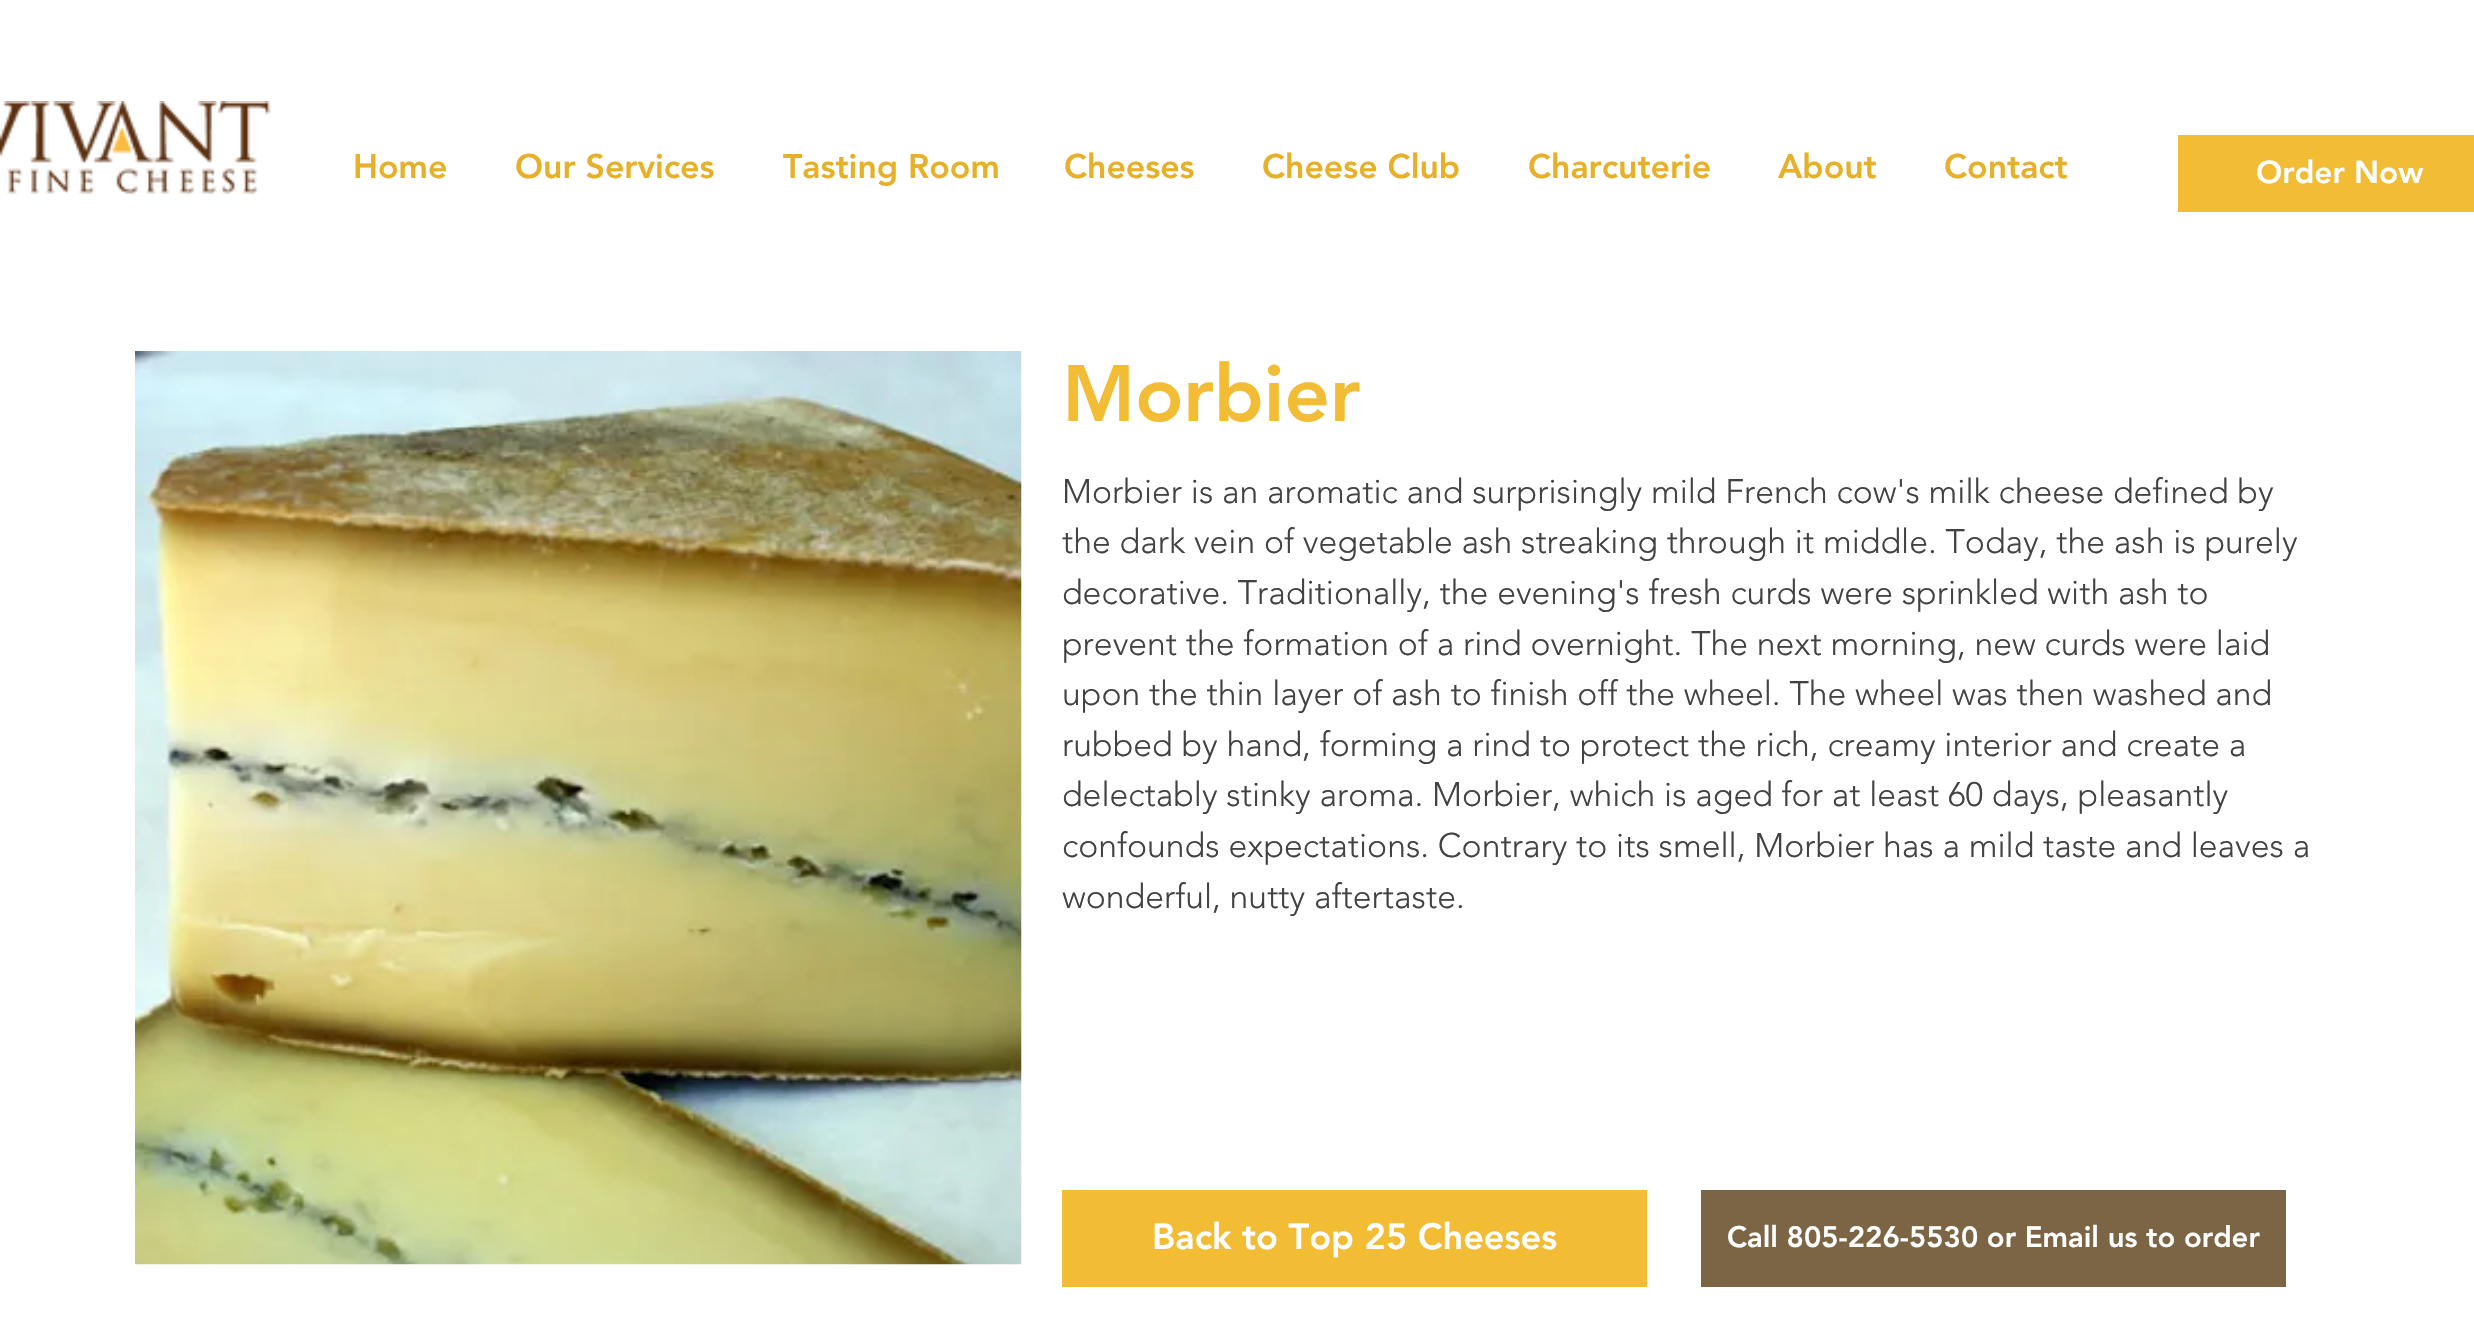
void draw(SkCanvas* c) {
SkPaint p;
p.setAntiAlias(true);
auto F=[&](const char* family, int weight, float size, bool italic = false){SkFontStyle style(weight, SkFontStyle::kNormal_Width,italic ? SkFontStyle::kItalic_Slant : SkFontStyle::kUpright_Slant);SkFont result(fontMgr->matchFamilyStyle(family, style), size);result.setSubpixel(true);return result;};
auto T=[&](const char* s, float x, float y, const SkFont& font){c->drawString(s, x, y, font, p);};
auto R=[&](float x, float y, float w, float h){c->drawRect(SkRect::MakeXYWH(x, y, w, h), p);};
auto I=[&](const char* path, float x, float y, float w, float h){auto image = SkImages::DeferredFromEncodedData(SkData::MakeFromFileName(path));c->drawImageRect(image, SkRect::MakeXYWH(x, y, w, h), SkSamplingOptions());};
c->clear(0xffffffff);
I("1.png",0,101,271,94);
auto f1 = F("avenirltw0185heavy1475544",900,33.75);
p.setColor(0xffe6b029);
T("Home",353,178,f1);
T("Our Services",515,178,f1);
T("Tasting Room",783,178,f1);
T("Cheeses",1064,178,f1);
T("Cheese Club",1262,178,f1);
T("Charcuterie",1528,178,f1);
T("About",1778,178,f1);
T("Contact",1944,178,f1);
p.setColor(0xfff2bc35);
R(2178,135,296,77);
auto f2 = F("avenirltw0185heavy1475544",900,31.5);
p.setColor(0xffffffff);
T("Order Now",2256,183,f2);
I("2.png",135,351,887,914);
auto f3 = F("avenirltw0185heavy1475544",900,79);
p.setColor(0xfff2bc35);
T("Morbier",1062,421,f3);
auto f4 = F("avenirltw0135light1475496",300,33.75);
p.setColor(0xff424242);
T("Morbier is an aromatic and surprisingly mild French cow's milk cheese defined by",1062,503,f4);
T("the dark vein of vegetable ash streaking through it middle. Today, the ash is purely",1062,553,f4);
T("decorative. Traditionally, the evening's fresh curds were sprinkled with ash to",1062,604,f4);
T("prevent the formation of a rind overnight. The next morning, new curds were laid",1062,655,f4);
T("upon the thin layer of ash to finish off the wheel. The wheel was then washed and",1062,705,f4);
T("rubbed by hand, forming a rind to protect the rich, creamy interior and create a",1062,756,f4);
T("delectably stinky aroma. Morbier, which is aged for at least 60 days, pleasantly",1062,806,f4);
T("confounds expectations. Contrary to its smell, Morbier has a mild taste and leaves a",1062,857,f4);
T("wonderful, nutty aftertaste.",1062,908,f4);
p.setColor(0xfff2bc35);
R(1062,1190,585,97);
auto f5 = F("avenirltw0185heavy1475544",900,36);
p.setColor(0xffffffff);
T("Back to Top 25 Cheeses",1152,1249,f5);
p.setColor(0xff7b6545);
R(1701,1190,585,97);
auto f6 = F("avenirltw0185heavy1475544",900,29.25);
p.setColor(0xffffffff);
T("Call 805-226-5530 or Email us to order",1727,1247,f6);
}
